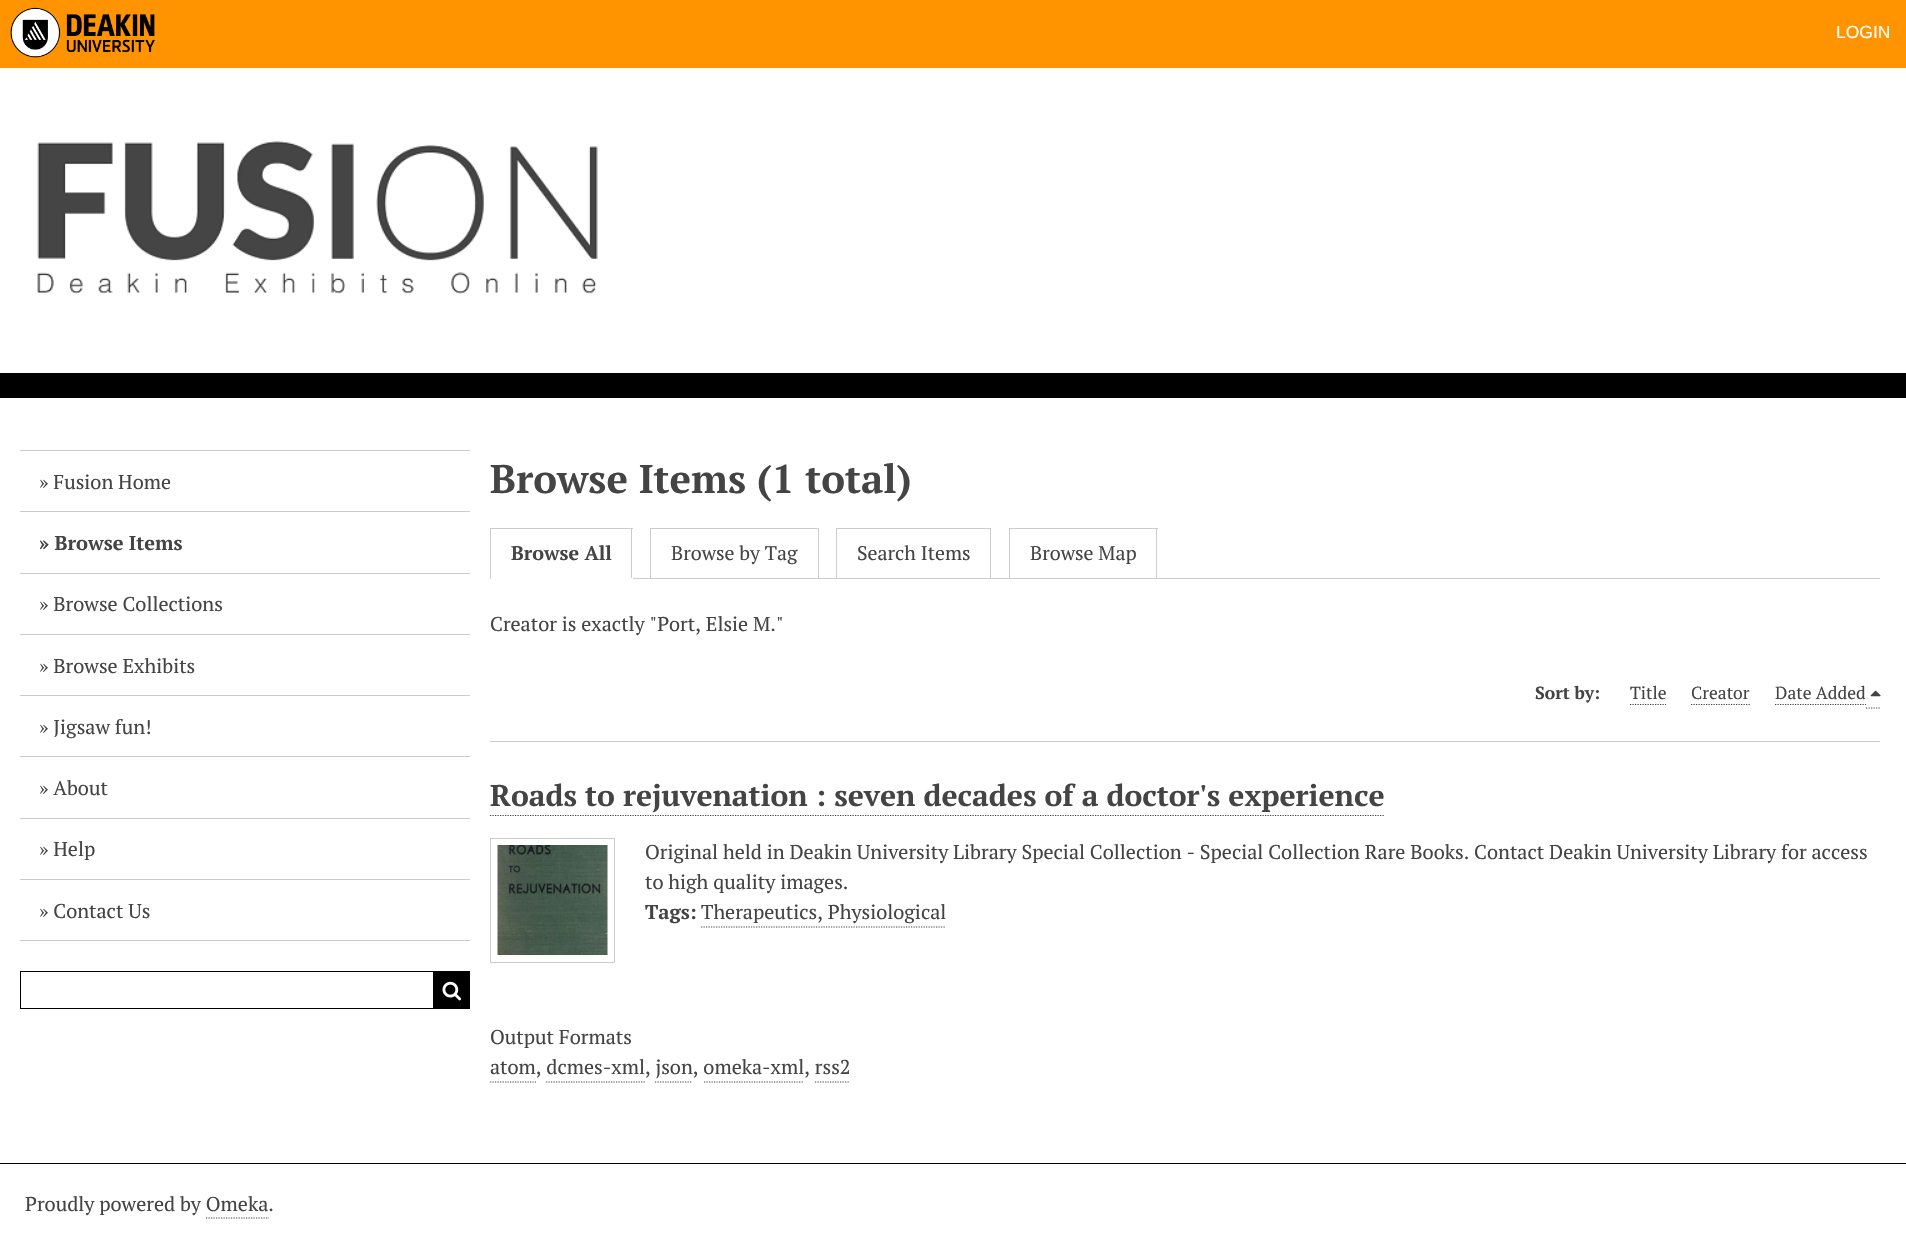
void draw(SkCanvas* c) {
SkPaint p;
p.setAntiAlias(true);
auto F=[&](const char* family, int weight, float size, bool italic = false){SkFontStyle style(weight, SkFontStyle::kNormal_Width,italic ? SkFontStyle::kItalic_Slant : SkFontStyle::kUpright_Slant);SkFont result(fontMgr->matchFamilyStyle(family, style), size);result.setSubpixel(true);return result;};
auto T=[&](const char* s, float x, float y, const SkFont& font){c->drawString(s, x, y, font, p);};
auto R=[&](float x, float y, float w, float h){c->drawRect(SkRect::MakeXYWH(x, y, w, h), p);};
auto I=[&](const char* path, float x, float y, float w, float h){auto image = SkImages::DeferredFromEncodedData(SkData::MakeFromFileName(path));c->drawImageRect(image, SkRect::MakeXYWH(x, y, w, h), SkSamplingOptions());};
auto P=[&](const char* data, bool evenOdd = false){SkPath result = *SkParsePath::FromSVGString(data);if (evenOdd) result.setFillType(SkPathFillType::kEvenOdd);return result;};
c->clear(0xffffffff);
p.setColor(0xffff9300);
R(0,0,1906,68);
I("1.png",10,7,145,51);
auto f1 = F("Liberation Sans",400,17.5);
p.setColor(0xffffffff);
T("LOGIN",1836,38,f1);
p.setColor(0xff000000);
R(0,373,1906,25);
I("2.png",37,141,561,153);
p.setColor(0xffcccccc);
R(20,450,450,1);
R(20,511,450,1);
auto f2 = F("PT Serif",400,20);
p.setColor(0xff444444);
T("» Fusion Home",39,489,f2);
p.setColor(0xffcccccc);
R(20,573,450,1);
auto f3 = F("PT Serif",700,20);
p.setColor(0xff444444);
T("» Browse Items",39,550,f3);
p.setColor(0xffcccccc);
R(20,634,450,1);
p.setColor(0xff444444);
T("» Browse Collections",39,611,f2);
p.setColor(0xffcccccc);
R(20,695,450,1);
p.setColor(0xff444444);
T("» Browse Exhibits",39,673,f2);
p.setColor(0xffcccccc);
R(20,756,450,1);
p.setColor(0xff444444);
T("» Jigsaw fun!",39,734,f2);
p.setColor(0xffcccccc);
R(20,818,450,1);
p.setColor(0xff444444);
T("» About",39,795,f2);
p.setColor(0xffcccccc);
R(20,879,450,1);
p.setColor(0xff444444);
T("» Help",39,856,f2);
p.setColor(0xffcccccc);
R(20,940,450,1);
p.setColor(0xff444444);
T("» Contact Us",39,918,f2);
p.setStroke(true);
p.setStrokeWidth(1);
p.setColor(0xff000000);
c->drawRect(SkRect::MakeXYWH(20.5,971.5,449,37),p);
p.setStroke(false);
R(433,972,36,36);
I("3.png",442,981,19,20);
auto f4 = F("PT Serif",700,40);
p.setColor(0xff444444);
T("Browse Items (1 total)",490,493,f4);
p.setColor(0xffcccccc);
R(633,578,1247,1);
R(490,528,143,1);
R(631,528,1,51);
p.setColor(0xffffffff);
R(631,578,2,1);
p.setColor(0xffcccccc);
R(490,528,1,51);
auto f5 = F("PT Serif",700,19.75);
p.setColor(0xff444444);
T("Browse All",511,560,f5);
p.setStroke(true);
p.setColor(0xffcccccc);
c->drawRect(SkRect::MakeXYWH(650.5,528.5,168,50),p);
auto f6 = F("PT Serif",400,19.75);
p.setStroke(false);
p.setColor(0xff444444);
T("Browse by Tag",671,560,f6);
p.setStroke(true);
p.setColor(0xffcccccc);
c->drawRect(SkRect::MakeXYWH(836.5,528.5,154,50),p);
p.setStroke(false);
p.setColor(0xff444444);
T("Search Items",857,560,f6);
p.setColor(0xffcccccc);
R(1009,528,149,1);
R(1156,528,1,50);
R(1009,528,1,50);
p.setColor(0xff444444);
T("Browse Map",1030,560,f6);
T("Creator is exactly \"Port, Elsie M.\"",490,631,f2);
auto f7 = F("PT Serif",700,17.5);
T("Sort by:",1535,699,f7);
auto f8 = F("PT Serif",400,17.5);
T("Title",1630,699,f8);
p.setStroke(true);
p.setStrokeWidth(1.2);
p.setPathEffect(SkDashPathEffect::Make({{1.25f,1.25f}}, 0));
c->drawPath(P("M1630 704.5h36"),p);
p.setPathEffect(nullptr);
p.setStroke(false);
T("Creator",1691,699,f8);
p.setStroke(true);
p.setPathEffect(SkDashPathEffect::Make({{1.25f,1.25f}}, 0));
c->drawPath(P("M1691 704.5h59"),p);
p.setPathEffect(nullptr);
p.setPathEffect(SkDashPathEffect::Make({{1.25f,1.25f}}, 0));
c->drawPath(P("M1775 704.5h91"),p);
p.setPathEffect(nullptr);
p.setPathEffect(SkDashPathEffect::Make({{1.25f,1.25f}}, 0));
c->drawPath(P("M1866 708h14"),p);
p.setPathEffect(nullptr);
p.setStroke(false);
T("Date Added",1775,699,f8);
I("4.png",1870,690,11,7);
p.setColor(0xffcccccc);
R(490,741,1390,1);
auto f9 = F("PT Serif",700,30);
p.setColor(0xff444444);
T("Roads to rejuvenation : seven decades of a doctor's experience",490,806,f9);
p.setStroke(true);
p.setPathEffect(SkDashPathEffect::Make({{1.25f,1.25f}}, 0));
c->drawPath(P("M490 815.5h895"),p);
p.setPathEffect(nullptr);
p.setStrokeWidth(1);
p.setColor(0xffcccccc);
c->drawRect(SkRect::MakeXYWH(490.5,838.5,124,124),p);
I("5.png",497,845,111,110);
p.setStroke(false);
p.setColor(0xff444444);
T("Original held in Deakin University Library Special Collection - Special Collection Rare Books. Contact Deakin University Library for access",645,859,f2);
T("to high quality images.",645,889,f2);
T("Tags:",645,919,f3);
T("Therapeutics, Physiological",701,919,f2);
p.setStroke(true);
p.setStrokeWidth(1.2);
p.setPathEffect(SkDashPathEffect::Make({{1.25f,1.25f}}, 0));
c->drawPath(P("M701 927h245"),p);
p.setPathEffect(nullptr);
p.setStroke(false);
T("Output Formats",490,1044,f2);
T("atom, dcmes-xml, json, omeka-xml, rss2",490,1074,f2);
p.setStroke(true);
p.setPathEffect(SkDashPathEffect::Make({{1.25f,1.25f}}, 0));
c->drawPath(P("M490 1082h46"),p);
p.setPathEffect(nullptr);
p.setPathEffect(SkDashPathEffect::Make({{1.25f,1.25f}}, 0));
c->drawPath(P("M546 1082h99"),p);
p.setPathEffect(nullptr);
p.setPathEffect(SkDashPathEffect::Make({{1.25f,1.25f}}, 0));
c->drawPath(P("M655 1082h37.5"),p);
p.setPathEffect(nullptr);
p.setPathEffect(SkDashPathEffect::Make({{1.25f,1.25f}}, 0));
c->drawPath(P("M704 1082h100"),p);
p.setPathEffect(nullptr);
p.setPathEffect(SkDashPathEffect::Make({{1.25f,1.25f}}, 0));
c->drawPath(P("M815 1082h35"),p);
p.setPathEffect(nullptr);
p.setStroke(false);
p.setColor(0xff000000);
R(0,1163,1906,1);
p.setColor(0xff444444);
T("Proudly powered by Omeka.",25,1211,f2);
p.setStroke(true);
p.setPathEffect(SkDashPathEffect::Make({{1.25f,1.25f}}, 0));
c->drawPath(P("M206 1218h63"),p);
p.setPathEffect(nullptr);
}
